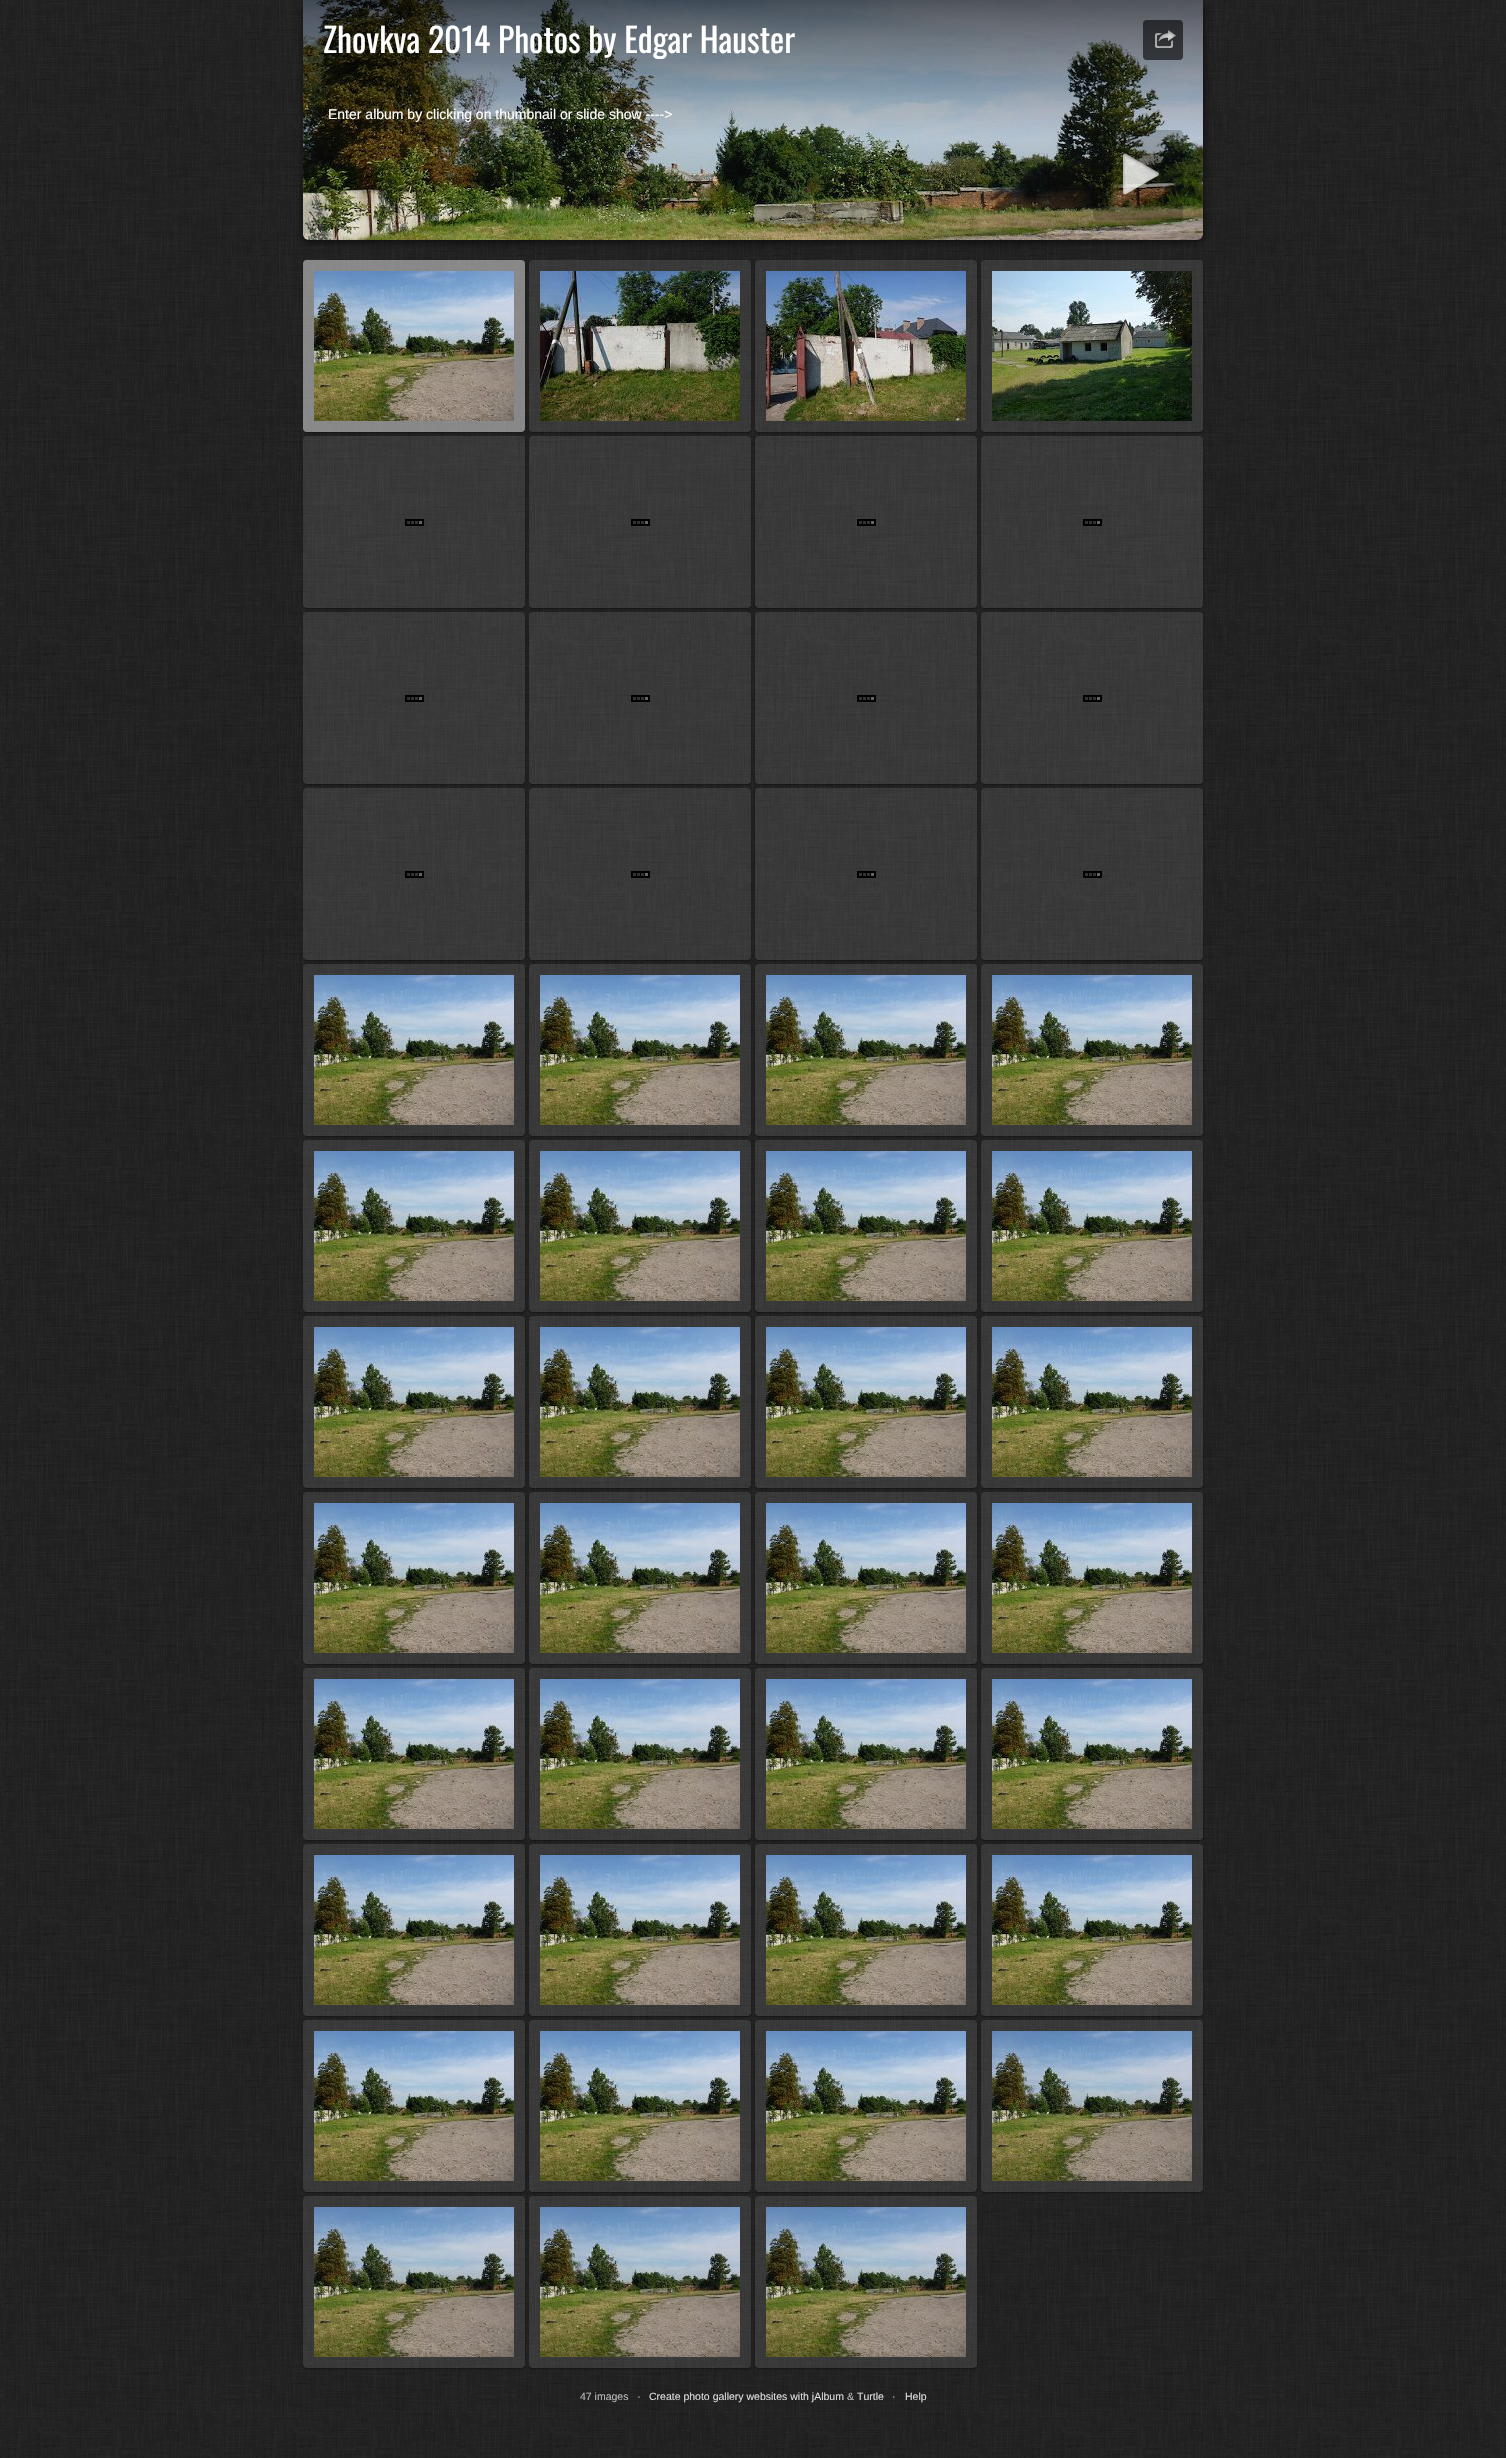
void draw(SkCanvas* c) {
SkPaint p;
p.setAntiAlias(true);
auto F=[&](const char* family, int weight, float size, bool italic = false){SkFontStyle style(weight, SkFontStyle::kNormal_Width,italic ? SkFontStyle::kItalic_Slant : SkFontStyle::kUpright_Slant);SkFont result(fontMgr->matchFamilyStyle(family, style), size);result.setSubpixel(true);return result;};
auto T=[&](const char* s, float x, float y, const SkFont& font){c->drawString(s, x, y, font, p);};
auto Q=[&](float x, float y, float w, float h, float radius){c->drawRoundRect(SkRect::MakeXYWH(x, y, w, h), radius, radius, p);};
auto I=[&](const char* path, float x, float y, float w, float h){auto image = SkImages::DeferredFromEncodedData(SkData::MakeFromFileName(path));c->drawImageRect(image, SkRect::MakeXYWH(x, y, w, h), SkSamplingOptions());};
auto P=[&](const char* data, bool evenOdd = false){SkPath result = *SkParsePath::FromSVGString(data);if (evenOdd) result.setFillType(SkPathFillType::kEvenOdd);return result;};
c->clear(0xff222222);
I("1.png",0,0,1506,2458);
p.setColor(0x99000000);
p.setMaskFilter(SkMaskFilter::MakeBlur(kNormal_SkBlurStyle, 4));
c->drawRoundRect(SkRect::MakeXYWH(304,3,900,240),6,6,p);
p.setMaskFilter(nullptr);
I("2.png",303,0,900,240);
auto f1 = F("Oswald",400,33.6);
p.setColor(0xffffffff);
T("Zhovkva 2014 Photos by Edgar Hauster",323,53,f1);
auto f2 = F("Liberation Sans",400,14);
T("Enter album by clicking on thumbnail or slide show ---->",328,119,f2);
p.setColor(0x99000000);
Q(1143,20,40,40,4);
I("3.png",1155,30,21,18);
p.setColor(0x33000000);
Q(1093,130,90,90,4);
I("4.png",1123,153,36,42);
c->save();
c->clipPath(P("M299 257h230v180h-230zm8 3h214c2 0 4 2 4 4v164c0 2-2 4-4 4h-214c-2 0-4-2-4-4v-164c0-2 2-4 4-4z",true),true);
p.setColor(0x66000000);
p.setMaskFilter(SkMaskFilter::MakeBlur(kNormal_SkBlurStyle, 1));
c->drawRoundRect(SkRect::MakeXYWH(303,261,222,172),4,4,p);
p.setMaskFilter(nullptr);
c->restore();
p.setColor(0x1affffff);
Q(303,260,222,172,4);
p.setColor(0x66ffffff);
Q(303,260,222,172,4);
I("5.png",314,271,200,150);
c->save();
c->clipPath(P("M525 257h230v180h-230zm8 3h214c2 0 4 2 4 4v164c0 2-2 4-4 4h-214c-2 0-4-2-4-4v-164c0-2 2-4 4-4z",true),true);
p.setColor(0x66000000);
p.setMaskFilter(SkMaskFilter::MakeBlur(kNormal_SkBlurStyle, 1));
c->drawRoundRect(SkRect::MakeXYWH(529,261,222,172),4,4,p);
p.setMaskFilter(nullptr);
c->restore();
p.setColor(0x1affffff);
Q(529,260,222,172,4);
I("6.png",540,271,200,150);
c->save();
c->clipPath(P("M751 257h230v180h-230zm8 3h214c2 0 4 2 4 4v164c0 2-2 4-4 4h-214c-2 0-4-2-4-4v-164c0-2 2-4 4-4z",true),true);
p.setColor(0x66000000);
p.setMaskFilter(SkMaskFilter::MakeBlur(kNormal_SkBlurStyle, 1));
c->drawRoundRect(SkRect::MakeXYWH(755,261,222,172),4,4,p);
p.setMaskFilter(nullptr);
c->restore();
p.setColor(0x1affffff);
Q(755,260,222,172,4);
I("7.png",766,271,200,150);
c->save();
c->clipPath(P("M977 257h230v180h-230zm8 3h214c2 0 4 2 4 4v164c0 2-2 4-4 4h-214c-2 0-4-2-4-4v-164c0-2 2-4 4-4z",true),true);
p.setColor(0x66000000);
p.setMaskFilter(SkMaskFilter::MakeBlur(kNormal_SkBlurStyle, 1));
c->drawRoundRect(SkRect::MakeXYWH(981,261,222,172),4,4,p);
p.setMaskFilter(nullptr);
c->restore();
p.setColor(0x1affffff);
Q(981,260,222,172,4);
I("8.png",992,271,200,150);
c->save();
c->clipPath(P("M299 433h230v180h-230zm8 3h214c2 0 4 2 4 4v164c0 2-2 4-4 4h-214c-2 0-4-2-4-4v-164c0-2 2-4 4-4z",true),true);
p.setColor(0x66000000);
p.setMaskFilter(SkMaskFilter::MakeBlur(kNormal_SkBlurStyle, 1));
c->drawRoundRect(SkRect::MakeXYWH(303,437,222,172),4,4,p);
p.setMaskFilter(nullptr);
c->restore();
p.setColor(0x1affffff);
Q(303,436,222,172,4);
I("9.png",405,519,19,7);
c->save();
c->clipPath(P("M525 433h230v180h-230zm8 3h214c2 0 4 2 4 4v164c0 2-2 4-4 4h-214c-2 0-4-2-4-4v-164c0-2 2-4 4-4z",true),true);
p.setColor(0x66000000);
p.setMaskFilter(SkMaskFilter::MakeBlur(kNormal_SkBlurStyle, 1));
c->drawRoundRect(SkRect::MakeXYWH(529,437,222,172),4,4,p);
p.setMaskFilter(nullptr);
c->restore();
p.setColor(0x1affffff);
Q(529,436,222,172,4);
I("9.png",631,519,19,7);
c->save();
c->clipPath(P("M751 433h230v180h-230zm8 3h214c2 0 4 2 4 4v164c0 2-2 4-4 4h-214c-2 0-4-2-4-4v-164c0-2 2-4 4-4z",true),true);
p.setColor(0x66000000);
p.setMaskFilter(SkMaskFilter::MakeBlur(kNormal_SkBlurStyle, 1));
c->drawRoundRect(SkRect::MakeXYWH(755,437,222,172),4,4,p);
p.setMaskFilter(nullptr);
c->restore();
p.setColor(0x1affffff);
Q(755,436,222,172,4);
I("9.png",857,519,19,7);
c->save();
c->clipPath(P("M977 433h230v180h-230zm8 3h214c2 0 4 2 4 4v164c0 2-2 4-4 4h-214c-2 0-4-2-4-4v-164c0-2 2-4 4-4z",true),true);
p.setColor(0x66000000);
p.setMaskFilter(SkMaskFilter::MakeBlur(kNormal_SkBlurStyle, 1));
c->drawRoundRect(SkRect::MakeXYWH(981,437,222,172),4,4,p);
p.setMaskFilter(nullptr);
c->restore();
p.setColor(0x1affffff);
Q(981,436,222,172,4);
I("9.png",1083,519,19,7);
c->save();
c->clipPath(P("M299 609h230v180h-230zm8 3h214c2 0 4 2 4 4v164c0 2-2 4-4 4h-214c-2 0-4-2-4-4v-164c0-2 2-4 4-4z",true),true);
p.setColor(0x66000000);
p.setMaskFilter(SkMaskFilter::MakeBlur(kNormal_SkBlurStyle, 1));
c->drawRoundRect(SkRect::MakeXYWH(303,613,222,172),4,4,p);
p.setMaskFilter(nullptr);
c->restore();
p.setColor(0x1affffff);
Q(303,612,222,172,4);
I("9.png",405,695,19,7);
c->save();
c->clipPath(P("M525 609h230v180h-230zm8 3h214c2 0 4 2 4 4v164c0 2-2 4-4 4h-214c-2 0-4-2-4-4v-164c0-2 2-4 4-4z",true),true);
p.setColor(0x66000000);
p.setMaskFilter(SkMaskFilter::MakeBlur(kNormal_SkBlurStyle, 1));
c->drawRoundRect(SkRect::MakeXYWH(529,613,222,172),4,4,p);
p.setMaskFilter(nullptr);
c->restore();
p.setColor(0x1affffff);
Q(529,612,222,172,4);
I("9.png",631,695,19,7);
c->save();
c->clipPath(P("M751 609h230v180h-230zm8 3h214c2 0 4 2 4 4v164c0 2-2 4-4 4h-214c-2 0-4-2-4-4v-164c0-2 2-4 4-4z",true),true);
p.setColor(0x66000000);
p.setMaskFilter(SkMaskFilter::MakeBlur(kNormal_SkBlurStyle, 1));
c->drawRoundRect(SkRect::MakeXYWH(755,613,222,172),4,4,p);
p.setMaskFilter(nullptr);
c->restore();
p.setColor(0x1affffff);
Q(755,612,222,172,4);
I("9.png",857,695,19,7);
c->save();
c->clipPath(P("M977 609h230v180h-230zm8 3h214c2 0 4 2 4 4v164c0 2-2 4-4 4h-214c-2 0-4-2-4-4v-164c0-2 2-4 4-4z",true),true);
p.setColor(0x66000000);
p.setMaskFilter(SkMaskFilter::MakeBlur(kNormal_SkBlurStyle, 1));
c->drawRoundRect(SkRect::MakeXYWH(981,613,222,172),4,4,p);
p.setMaskFilter(nullptr);
c->restore();
p.setColor(0x1affffff);
Q(981,612,222,172,4);
I("9.png",1083,695,19,7);
c->save();
c->clipPath(P("M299 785h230v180h-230zm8 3h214c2 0 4 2 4 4v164c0 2-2 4-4 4h-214c-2 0-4-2-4-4v-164c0-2 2-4 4-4z",true),true);
p.setColor(0x66000000);
p.setMaskFilter(SkMaskFilter::MakeBlur(kNormal_SkBlurStyle, 1));
c->drawRoundRect(SkRect::MakeXYWH(303,789,222,172),4,4,p);
p.setMaskFilter(nullptr);
c->restore();
p.setColor(0x1affffff);
Q(303,788,222,172,4);
I("9.png",405,871,19,7);
c->save();
c->clipPath(P("M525 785h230v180h-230zm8 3h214c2 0 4 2 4 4v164c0 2-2 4-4 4h-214c-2 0-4-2-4-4v-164c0-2 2-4 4-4z",true),true);
p.setColor(0x66000000);
p.setMaskFilter(SkMaskFilter::MakeBlur(kNormal_SkBlurStyle, 1));
c->drawRoundRect(SkRect::MakeXYWH(529,789,222,172),4,4,p);
p.setMaskFilter(nullptr);
c->restore();
p.setColor(0x1affffff);
Q(529,788,222,172,4);
I("9.png",631,871,19,7);
c->save();
c->clipPath(P("M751 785h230v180h-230zm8 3h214c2 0 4 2 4 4v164c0 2-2 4-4 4h-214c-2 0-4-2-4-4v-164c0-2 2-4 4-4z",true),true);
p.setColor(0x66000000);
p.setMaskFilter(SkMaskFilter::MakeBlur(kNormal_SkBlurStyle, 1));
c->drawRoundRect(SkRect::MakeXYWH(755,789,222,172),4,4,p);
p.setMaskFilter(nullptr);
c->restore();
p.setColor(0x1affffff);
Q(755,788,222,172,4);
I("9.png",857,871,19,7);
c->save();
c->clipPath(P("M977 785h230v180h-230zm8 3h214c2 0 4 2 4 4v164c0 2-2 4-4 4h-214c-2 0-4-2-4-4v-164c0-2 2-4 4-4z",true),true);
p.setColor(0x66000000);
p.setMaskFilter(SkMaskFilter::MakeBlur(kNormal_SkBlurStyle, 1));
c->drawRoundRect(SkRect::MakeXYWH(981,789,222,172),4,4,p);
p.setMaskFilter(nullptr);
c->restore();
p.setColor(0x1affffff);
Q(981,788,222,172,4);
I("9.png",1083,871,19,7);
c->save();
c->clipPath(P("M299 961h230v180h-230zm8 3h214c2 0 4 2 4 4v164c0 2-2 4-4 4h-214c-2 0-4-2-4-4v-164c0-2 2-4 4-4z",true),true);
p.setColor(0x66000000);
p.setMaskFilter(SkMaskFilter::MakeBlur(kNormal_SkBlurStyle, 1));
c->drawRoundRect(SkRect::MakeXYWH(303,965,222,172),4,4,p);
p.setMaskFilter(nullptr);
c->restore();
p.setColor(0x1affffff);
Q(303,964,222,172,4);
I("5.png",314,975,200,150);
c->save();
c->clipPath(P("M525 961h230v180h-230zm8 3h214c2 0 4 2 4 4v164c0 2-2 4-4 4h-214c-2 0-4-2-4-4v-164c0-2 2-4 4-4z",true),true);
p.setColor(0x66000000);
p.setMaskFilter(SkMaskFilter::MakeBlur(kNormal_SkBlurStyle, 1));
c->drawRoundRect(SkRect::MakeXYWH(529,965,222,172),4,4,p);
p.setMaskFilter(nullptr);
c->restore();
p.setColor(0x1affffff);
Q(529,964,222,172,4);
I("5.png",540,975,200,150);
c->save();
c->clipPath(P("M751 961h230v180h-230zm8 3h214c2 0 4 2 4 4v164c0 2-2 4-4 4h-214c-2 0-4-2-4-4v-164c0-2 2-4 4-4z",true),true);
p.setColor(0x66000000);
p.setMaskFilter(SkMaskFilter::MakeBlur(kNormal_SkBlurStyle, 1));
c->drawRoundRect(SkRect::MakeXYWH(755,965,222,172),4,4,p);
p.setMaskFilter(nullptr);
c->restore();
p.setColor(0x1affffff);
Q(755,964,222,172,4);
I("5.png",766,975,200,150);
c->save();
c->clipPath(P("M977 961h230v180h-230zm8 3h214c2 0 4 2 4 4v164c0 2-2 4-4 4h-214c-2 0-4-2-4-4v-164c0-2 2-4 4-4z",true),true);
p.setColor(0x66000000);
p.setMaskFilter(SkMaskFilter::MakeBlur(kNormal_SkBlurStyle, 1));
c->drawRoundRect(SkRect::MakeXYWH(981,965,222,172),4,4,p);
p.setMaskFilter(nullptr);
c->restore();
p.setColor(0x1affffff);
Q(981,964,222,172,4);
I("5.png",992,975,200,150);
c->save();
c->clipPath(P("M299 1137h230v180h-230zm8 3h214c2 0 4 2 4 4v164c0 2-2 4-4 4h-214c-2 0-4-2-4-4v-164c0-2 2-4 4-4z",true),true);
p.setColor(0x66000000);
p.setMaskFilter(SkMaskFilter::MakeBlur(kNormal_SkBlurStyle, 1));
c->drawRoundRect(SkRect::MakeXYWH(303,1141,222,172),4,4,p);
p.setMaskFilter(nullptr);
c->restore();
p.setColor(0x1affffff);
Q(303,1140,222,172,4);
I("5.png",314,1151,200,150);
c->save();
c->clipPath(P("M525 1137h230v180h-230zm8 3h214c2 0 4 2 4 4v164c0 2-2 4-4 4h-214c-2 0-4-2-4-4v-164c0-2 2-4 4-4z",true),true);
p.setColor(0x66000000);
p.setMaskFilter(SkMaskFilter::MakeBlur(kNormal_SkBlurStyle, 1));
c->drawRoundRect(SkRect::MakeXYWH(529,1141,222,172),4,4,p);
p.setMaskFilter(nullptr);
c->restore();
p.setColor(0x1affffff);
Q(529,1140,222,172,4);
I("5.png",540,1151,200,150);
c->save();
c->clipPath(P("M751 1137h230v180h-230zm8 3h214c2 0 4 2 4 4v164c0 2-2 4-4 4h-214c-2 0-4-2-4-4v-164c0-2 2-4 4-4z",true),true);
p.setColor(0x66000000);
p.setMaskFilter(SkMaskFilter::MakeBlur(kNormal_SkBlurStyle, 1));
c->drawRoundRect(SkRect::MakeXYWH(755,1141,222,172),4,4,p);
p.setMaskFilter(nullptr);
c->restore();
p.setColor(0x1affffff);
Q(755,1140,222,172,4);
I("5.png",766,1151,200,150);
c->save();
c->clipPath(P("M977 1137h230v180h-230zm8 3h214c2 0 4 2 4 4v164c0 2-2 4-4 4h-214c-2 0-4-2-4-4v-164c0-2 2-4 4-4z",true),true);
p.setColor(0x66000000);
p.setMaskFilter(SkMaskFilter::MakeBlur(kNormal_SkBlurStyle, 1));
c->drawRoundRect(SkRect::MakeXYWH(981,1141,222,172),4,4,p);
p.setMaskFilter(nullptr);
c->restore();
p.setColor(0x1affffff);
Q(981,1140,222,172,4);
I("5.png",992,1151,200,150);
c->save();
c->clipPath(P("M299 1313h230v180h-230zm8 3h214c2 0 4 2 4 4v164c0 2-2 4-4 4h-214c-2 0-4-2-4-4v-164c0-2 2-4 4-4z",true),true);
p.setColor(0x66000000);
p.setMaskFilter(SkMaskFilter::MakeBlur(kNormal_SkBlurStyle, 1));
c->drawRoundRect(SkRect::MakeXYWH(303,1317,222,172),4,4,p);
p.setMaskFilter(nullptr);
c->restore();
p.setColor(0x1affffff);
Q(303,1316,222,172,4);
I("5.png",314,1327,200,150);
c->save();
c->clipPath(P("M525 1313h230v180h-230zm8 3h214c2 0 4 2 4 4v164c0 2-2 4-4 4h-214c-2 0-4-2-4-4v-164c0-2 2-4 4-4z",true),true);
p.setColor(0x66000000);
p.setMaskFilter(SkMaskFilter::MakeBlur(kNormal_SkBlurStyle, 1));
c->drawRoundRect(SkRect::MakeXYWH(529,1317,222,172),4,4,p);
p.setMaskFilter(nullptr);
c->restore();
p.setColor(0x1affffff);
Q(529,1316,222,172,4);
I("5.png",540,1327,200,150);
c->save();
c->clipPath(P("M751 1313h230v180h-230zm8 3h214c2 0 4 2 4 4v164c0 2-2 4-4 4h-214c-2 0-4-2-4-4v-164c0-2 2-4 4-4z",true),true);
p.setColor(0x66000000);
p.setMaskFilter(SkMaskFilter::MakeBlur(kNormal_SkBlurStyle, 1));
c->drawRoundRect(SkRect::MakeXYWH(755,1317,222,172),4,4,p);
p.setMaskFilter(nullptr);
c->restore();
p.setColor(0x1affffff);
Q(755,1316,222,172,4);
I("5.png",766,1327,200,150);
c->save();
c->clipPath(P("M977 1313h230v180h-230zm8 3h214c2 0 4 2 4 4v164c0 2-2 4-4 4h-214c-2 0-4-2-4-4v-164c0-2 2-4 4-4z",true),true);
p.setColor(0x66000000);
p.setMaskFilter(SkMaskFilter::MakeBlur(kNormal_SkBlurStyle, 1));
c->drawRoundRect(SkRect::MakeXYWH(981,1317,222,172),4,4,p);
p.setMaskFilter(nullptr);
c->restore();
p.setColor(0x1affffff);
Q(981,1316,222,172,4);
I("5.png",992,1327,200,150);
c->save();
c->clipPath(P("M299 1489h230v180h-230zm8 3h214c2 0 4 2 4 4v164c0 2-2 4-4 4h-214c-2 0-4-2-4-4v-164c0-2 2-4 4-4z",true),true);
p.setColor(0x66000000);
p.setMaskFilter(SkMaskFilter::MakeBlur(kNormal_SkBlurStyle, 1));
c->drawRoundRect(SkRect::MakeXYWH(303,1493,222,172),4,4,p);
p.setMaskFilter(nullptr);
c->restore();
p.setColor(0x1affffff);
Q(303,1492,222,172,4);
I("5.png",314,1503,200,150);
c->save();
c->clipPath(P("M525 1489h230v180h-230zm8 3h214c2 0 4 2 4 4v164c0 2-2 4-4 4h-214c-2 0-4-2-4-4v-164c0-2 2-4 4-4z",true),true);
p.setColor(0x66000000);
p.setMaskFilter(SkMaskFilter::MakeBlur(kNormal_SkBlurStyle, 1));
c->drawRoundRect(SkRect::MakeXYWH(529,1493,222,172),4,4,p);
p.setMaskFilter(nullptr);
c->restore();
p.setColor(0x1affffff);
Q(529,1492,222,172,4);
I("5.png",540,1503,200,150);
c->save();
c->clipPath(P("M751 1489h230v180h-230zm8 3h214c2 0 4 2 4 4v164c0 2-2 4-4 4h-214c-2 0-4-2-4-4v-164c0-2 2-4 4-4z",true),true);
p.setColor(0x66000000);
p.setMaskFilter(SkMaskFilter::MakeBlur(kNormal_SkBlurStyle, 1));
c->drawRoundRect(SkRect::MakeXYWH(755,1493,222,172),4,4,p);
p.setMaskFilter(nullptr);
c->restore();
p.setColor(0x1affffff);
Q(755,1492,222,172,4);
I("5.png",766,1503,200,150);
c->save();
c->clipPath(P("M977 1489h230v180h-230zm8 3h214c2 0 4 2 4 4v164c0 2-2 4-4 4h-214c-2 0-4-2-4-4v-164c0-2 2-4 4-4z",true),true);
p.setColor(0x66000000);
p.setMaskFilter(SkMaskFilter::MakeBlur(kNormal_SkBlurStyle, 1));
c->drawRoundRect(SkRect::MakeXYWH(981,1493,222,172),4,4,p);
p.setMaskFilter(nullptr);
c->restore();
p.setColor(0x1affffff);
Q(981,1492,222,172,4);
I("5.png",992,1503,200,150);
c->save();
c->clipPath(P("M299 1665h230v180h-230zm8 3h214c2 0 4 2 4 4v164c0 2-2 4-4 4h-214c-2 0-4-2-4-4v-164c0-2 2-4 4-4z",true),true);
p.setColor(0x66000000);
p.setMaskFilter(SkMaskFilter::MakeBlur(kNormal_SkBlurStyle, 1));
c->drawRoundRect(SkRect::MakeXYWH(303,1669,222,172),4,4,p);
p.setMaskFilter(nullptr);
c->restore();
p.setColor(0x1affffff);
Q(303,1668,222,172,4);
I("5.png",314,1679,200,150);
c->save();
c->clipPath(P("M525 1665h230v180h-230zm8 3h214c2 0 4 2 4 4v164c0 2-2 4-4 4h-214c-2 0-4-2-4-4v-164c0-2 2-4 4-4z",true),true);
p.setColor(0x66000000);
p.setMaskFilter(SkMaskFilter::MakeBlur(kNormal_SkBlurStyle, 1));
c->drawRoundRect(SkRect::MakeXYWH(529,1669,222,172),4,4,p);
p.setMaskFilter(nullptr);
c->restore();
p.setColor(0x1affffff);
Q(529,1668,222,172,4);
I("5.png",540,1679,200,150);
c->save();
c->clipPath(P("M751 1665h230v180h-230zm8 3h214c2 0 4 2 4 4v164c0 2-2 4-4 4h-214c-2 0-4-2-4-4v-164c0-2 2-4 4-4z",true),true);
p.setColor(0x66000000);
p.setMaskFilter(SkMaskFilter::MakeBlur(kNormal_SkBlurStyle, 1));
c->drawRoundRect(SkRect::MakeXYWH(755,1669,222,172),4,4,p);
p.setMaskFilter(nullptr);
c->restore();
p.setColor(0x1affffff);
Q(755,1668,222,172,4);
I("5.png",766,1679,200,150);
c->save();
c->clipPath(P("M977 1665h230v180h-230zm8 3h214c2 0 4 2 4 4v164c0 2-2 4-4 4h-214c-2 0-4-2-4-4v-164c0-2 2-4 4-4z",true),true);
p.setColor(0x66000000);
p.setMaskFilter(SkMaskFilter::MakeBlur(kNormal_SkBlurStyle, 1));
c->drawRoundRect(SkRect::MakeXYWH(981,1669,222,172),4,4,p);
p.setMaskFilter(nullptr);
c->restore();
p.setColor(0x1affffff);
Q(981,1668,222,172,4);
I("5.png",992,1679,200,150);
c->save();
c->clipPath(P("M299 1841h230v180h-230zm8 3h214c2 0 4 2 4 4v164c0 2-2 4-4 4h-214c-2 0-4-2-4-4v-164c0-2 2-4 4-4z",true),true);
p.setColor(0x66000000);
p.setMaskFilter(SkMaskFilter::MakeBlur(kNormal_SkBlurStyle, 1));
c->drawRoundRect(SkRect::MakeXYWH(303,1845,222,172),4,4,p);
p.setMaskFilter(nullptr);
c->restore();
p.setColor(0x1affffff);
Q(303,1844,222,172,4);
I("5.png",314,1855,200,150);
c->save();
c->clipPath(P("M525 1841h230v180h-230zm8 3h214c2 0 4 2 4 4v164c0 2-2 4-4 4h-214c-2 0-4-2-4-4v-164c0-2 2-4 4-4z",true),true);
p.setColor(0x66000000);
p.setMaskFilter(SkMaskFilter::MakeBlur(kNormal_SkBlurStyle, 1));
c->drawRoundRect(SkRect::MakeXYWH(529,1845,222,172),4,4,p);
p.setMaskFilter(nullptr);
c->restore();
p.setColor(0x1affffff);
Q(529,1844,222,172,4);
I("5.png",540,1855,200,150);
c->save();
c->clipPath(P("M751 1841h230v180h-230zm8 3h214c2 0 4 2 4 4v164c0 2-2 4-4 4h-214c-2 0-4-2-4-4v-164c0-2 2-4 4-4z",true),true);
p.setColor(0x66000000);
p.setMaskFilter(SkMaskFilter::MakeBlur(kNormal_SkBlurStyle, 1));
c->drawRoundRect(SkRect::MakeXYWH(755,1845,222,172),4,4,p);
p.setMaskFilter(nullptr);
c->restore();
p.setColor(0x1affffff);
Q(755,1844,222,172,4);
I("5.png",766,1855,200,150);
c->save();
c->clipPath(P("M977 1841h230v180h-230zm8 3h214c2 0 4 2 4 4v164c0 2-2 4-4 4h-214c-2 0-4-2-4-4v-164c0-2 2-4 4-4z",true),true);
p.setColor(0x66000000);
p.setMaskFilter(SkMaskFilter::MakeBlur(kNormal_SkBlurStyle, 1));
c->drawRoundRect(SkRect::MakeXYWH(981,1845,222,172),4,4,p);
p.setMaskFilter(nullptr);
c->restore();
p.setColor(0x1affffff);
Q(981,1844,222,172,4);
I("5.png",992,1855,200,150);
c->save();
c->clipPath(P("M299 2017h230v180h-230zm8 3h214c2 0 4 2 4 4v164c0 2-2 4-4 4h-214c-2 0-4-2-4-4v-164c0-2 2-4 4-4z",true),true);
p.setColor(0x66000000);
p.setMaskFilter(SkMaskFilter::MakeBlur(kNormal_SkBlurStyle, 1));
c->drawRoundRect(SkRect::MakeXYWH(303,2021,222,172),4,4,p);
p.setMaskFilter(nullptr);
c->restore();
p.setColor(0x1affffff);
Q(303,2020,222,172,4);
I("5.png",314,2031,200,150);
c->save();
c->clipPath(P("M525 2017h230v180h-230zm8 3h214c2 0 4 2 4 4v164c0 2-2 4-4 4h-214c-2 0-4-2-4-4v-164c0-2 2-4 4-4z",true),true);
p.setColor(0x66000000);
p.setMaskFilter(SkMaskFilter::MakeBlur(kNormal_SkBlurStyle, 1));
c->drawRoundRect(SkRect::MakeXYWH(529,2021,222,172),4,4,p);
p.setMaskFilter(nullptr);
c->restore();
p.setColor(0x1affffff);
Q(529,2020,222,172,4);
I("5.png",540,2031,200,150);
c->save();
c->clipPath(P("M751 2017h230v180h-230zm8 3h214c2 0 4 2 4 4v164c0 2-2 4-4 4h-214c-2 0-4-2-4-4v-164c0-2 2-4 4-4z",true),true);
p.setColor(0x66000000);
p.setMaskFilter(SkMaskFilter::MakeBlur(kNormal_SkBlurStyle, 1));
c->drawRoundRect(SkRect::MakeXYWH(755,2021,222,172),4,4,p);
p.setMaskFilter(nullptr);
c->restore();
p.setColor(0x1affffff);
Q(755,2020,222,172,4);
I("5.png",766,2031,200,150);
c->save();
c->clipPath(P("M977 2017h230v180h-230zm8 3h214c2 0 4 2 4 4v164c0 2-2 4-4 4h-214c-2 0-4-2-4-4v-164c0-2 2-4 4-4z",true),true);
p.setColor(0x66000000);
p.setMaskFilter(SkMaskFilter::MakeBlur(kNormal_SkBlurStyle, 1));
c->drawRoundRect(SkRect::MakeXYWH(981,2021,222,172),4,4,p);
p.setMaskFilter(nullptr);
c->restore();
p.setColor(0x1affffff);
Q(981,2020,222,172,4);
I("10.png",992,2031,200,150);
c->save();
c->clipPath(P("M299 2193h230v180h-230zm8 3h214c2 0 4 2 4 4v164c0 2-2 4-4 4h-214c-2 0-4-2-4-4v-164c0-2 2-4 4-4z",true),true);
p.setColor(0x66000000);
p.setMaskFilter(SkMaskFilter::MakeBlur(kNormal_SkBlurStyle, 1));
c->drawRoundRect(SkRect::MakeXYWH(303,2197,222,172),4,4,p);
p.setMaskFilter(nullptr);
c->restore();
p.setColor(0x1affffff);
Q(303,2196,222,172,4);
I("11.png",314,2207,200,150);
c->save();
c->clipPath(P("M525 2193h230v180h-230zm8 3h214c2 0 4 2 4 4v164c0 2-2 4-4 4h-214c-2 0-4-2-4-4v-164c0-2 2-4 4-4z",true),true);
p.setColor(0x66000000);
p.setMaskFilter(SkMaskFilter::MakeBlur(kNormal_SkBlurStyle, 1));
c->drawRoundRect(SkRect::MakeXYWH(529,2197,222,172),4,4,p);
p.setMaskFilter(nullptr);
c->restore();
p.setColor(0x1affffff);
Q(529,2196,222,172,4);
I("12.png",540,2207,200,150);
c->save();
c->clipPath(P("M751 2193h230v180h-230zm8 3h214c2 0 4 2 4 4v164c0 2-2 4-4 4h-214c-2 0-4-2-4-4v-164c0-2 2-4 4-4z",true),true);
p.setColor(0x66000000);
p.setMaskFilter(SkMaskFilter::MakeBlur(kNormal_SkBlurStyle, 1));
c->drawRoundRect(SkRect::MakeXYWH(755,2197,222,172),4,4,p);
p.setMaskFilter(nullptr);
c->restore();
p.setColor(0x1affffff);
Q(755,2196,222,172,4);
I("13.png",766,2207,200,150);
auto f3 = F("Liberation Sans",400,10.5);
p.setColor(0xffbbbbbb);
T("47 images   ·",580,2400,f3);
p.setColor(0xffdddddd);
T("Create photo gallery websites with jAlbum",649,2400,f3);
p.setColor(0xffbbbbbb);
T("&",847,2400,f3);
p.setColor(0xffdddddd);
T("Turtle",857,2400,f3);
p.setColor(0xffbbbbbb);
T("·",892,2400,f3);
p.setColor(0xffdddddd);
T("Help",905,2400,f3);
}
